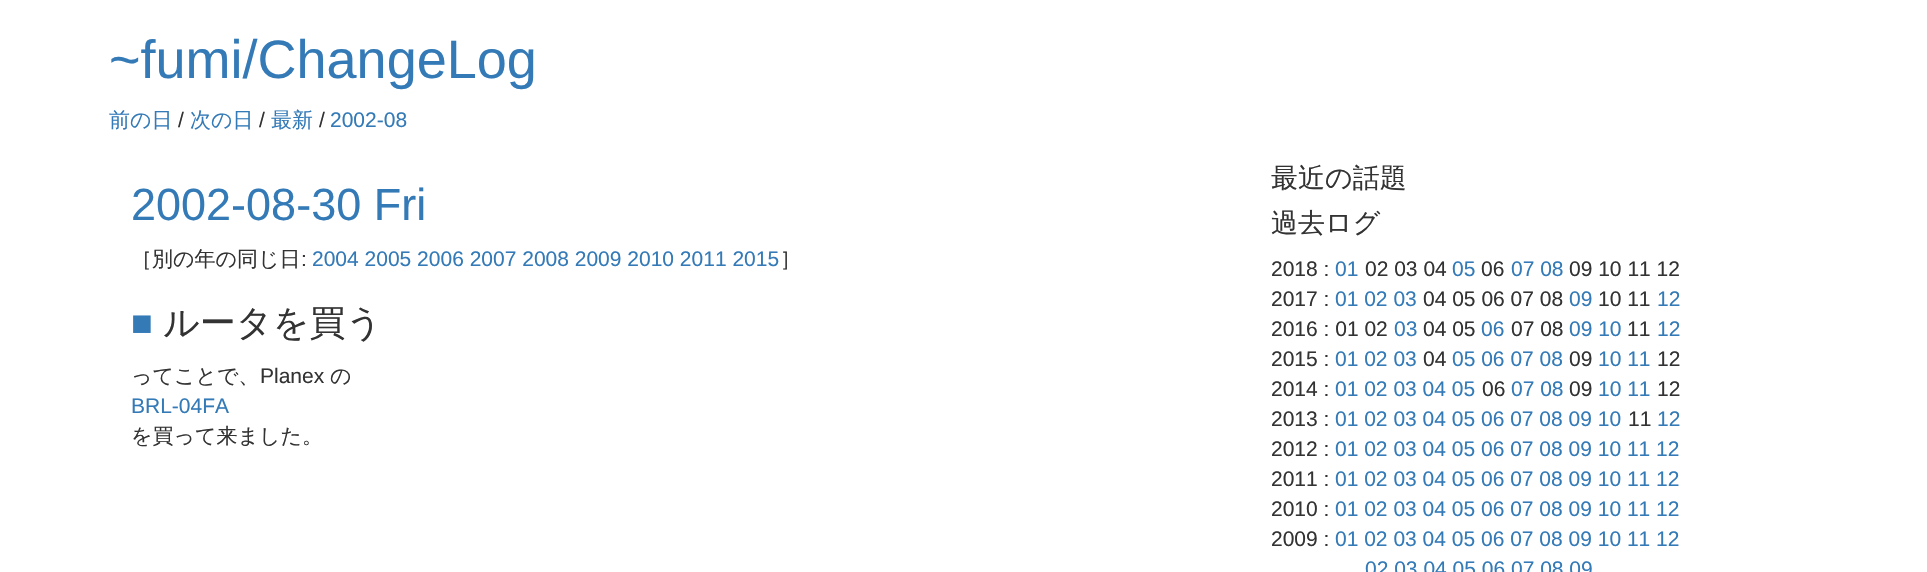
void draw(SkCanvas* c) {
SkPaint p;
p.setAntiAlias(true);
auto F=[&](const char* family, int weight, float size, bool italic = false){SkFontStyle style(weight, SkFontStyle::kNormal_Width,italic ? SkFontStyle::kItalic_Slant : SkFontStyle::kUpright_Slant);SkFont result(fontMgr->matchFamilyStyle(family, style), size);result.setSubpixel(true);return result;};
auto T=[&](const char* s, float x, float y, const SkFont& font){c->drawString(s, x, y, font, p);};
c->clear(0xffffffff);
auto f1 = F("Liberation Sans",400,54);
p.setColor(0xff337ab7);
T("~fumi/ChangeLog",109,78,f1);
auto f2 = F("WenQuanYi Zen Hei",500,21);
T("前の日",109,127,f2);
auto f3 = F("Liberation Sans",400,21);
p.setColor(0xff333333);
T("/",178,127,f3);
p.setColor(0xff337ab7);
T("次の日",190,127,f2);
p.setColor(0xff333333);
T("/",259,127,f3);
p.setColor(0xff337ab7);
T("最新",271,127,f2);
p.setColor(0xff333333);
T("/",319,127,f3);
p.setColor(0xff337ab7);
T("2002-08",330,127,f3);
auto f4 = F("Liberation Sans",400,45);
T("2002-08-30 Fri",131,220,f4);
p.setColor(0xff333333);
T("［別の年の同じ日",131,266,f2);
T(":",301,266,f3);
p.setColor(0xff337ab7);
T("2004 2005 2006 2007 2008 2009 2010 2011 2015",312,266,f3);
p.setColor(0xff333333);
T("］",780,266,f2);
auto f5 = F("Liberation Sans",400,36);
p.setColor(0xff337ab7);
T("■",131,335,f5);
auto f6 = F("WenQuanYi Zen Hei",500,36);
p.setColor(0xff333333);
T("ルータを買う",163,335,f6);
T("ってことで、",131,383,f2);
T("Planex",260,383,f3);
T("の",330,383,f2);
p.setColor(0xff337ab7);
T("BRL-04FA",131,413,f3);
p.setColor(0xff333333);
T("を買って来ました。",131,443,f2);
auto f7 = F("WenQuanYi Zen Hei",500,27);
T("最近の話題",1271,187,f7);
T("過去ログ",1271,232,f7);
T("2018 :",1271,276,f3);
p.setColor(0xff337ab7);
T("01",1335,276,f3);
p.setColor(0xff333333);
T("02 03 04",1365,276,f3);
p.setColor(0xff337ab7);
T("05",1452,276,f3);
p.setColor(0xff333333);
T("06",1481,276,f3);
p.setColor(0xff337ab7);
T("07 08",1511,276,f3);
p.setColor(0xff333333);
T("09 10 11 12",1569,276,f3);
T("2017 :",1271,306,f3);
p.setColor(0xff337ab7);
T("01 02 03",1335,306,f3);
p.setColor(0xff333333);
T("04 05 06 07 08",1423,306,f3);
p.setColor(0xff337ab7);
T("09",1569,306,f3);
p.setColor(0xff333333);
T("10 11",1598,306,f3);
p.setColor(0xff337ab7);
T("12",1657,306,f3);
p.setColor(0xff333333);
T("2016 : 01 02",1271,336,f3);
p.setColor(0xff337ab7);
T("03",1394,336,f3);
p.setColor(0xff333333);
T("04 05",1423,336,f3);
p.setColor(0xff337ab7);
T("06",1481,336,f3);
p.setColor(0xff333333);
T("07 08",1511,336,f3);
p.setColor(0xff337ab7);
T("09 10",1569,336,f3);
p.setColor(0xff333333);
T("11",1627,336,f3);
p.setColor(0xff337ab7);
T("12",1657,336,f3);
p.setColor(0xff333333);
T("2015 :",1271,366,f3);
p.setColor(0xff337ab7);
T("01 02 03",1335,366,f3);
p.setColor(0xff333333);
T("04",1423,366,f3);
p.setColor(0xff337ab7);
T("05 06 07 08",1452,366,f3);
p.setColor(0xff333333);
T("09",1569,366,f3);
p.setColor(0xff337ab7);
T("10 11",1598,366,f3);
p.setColor(0xff333333);
T("12",1657,366,f3);
T("2014 :",1271,396,f3);
p.setColor(0xff337ab7);
T("01 02 03 04 05",1335,396,f3);
p.setColor(0xff333333);
T("06",1482,396,f3);
p.setColor(0xff337ab7);
T("07 08",1511,396,f3);
p.setColor(0xff333333);
T("09",1569,396,f3);
p.setColor(0xff337ab7);
T("10 11",1598,396,f3);
p.setColor(0xff333333);
T("12",1657,396,f3);
T("2013 :",1271,426,f3);
p.setColor(0xff337ab7);
T("01 02 03 04 05 06 07 08 09 10",1335,426,f3);
p.setColor(0xff333333);
T("11",1628,426,f3);
p.setColor(0xff337ab7);
T("12",1657,426,f3);
p.setColor(0xff333333);
T("2012 :",1271,456,f3);
p.setColor(0xff337ab7);
T("01 02 03 04 05 06 07 08 09 10 11 12",1335,456,f3);
p.setColor(0xff333333);
T("2011 :",1271,486,f3);
p.setColor(0xff337ab7);
T("01 02 03 04 05 06 07 08 09 10 11 12",1335,486,f3);
p.setColor(0xff333333);
T("2010 :",1271,516,f3);
p.setColor(0xff337ab7);
T("01 02 03 04 05 06 07 08 09 10 11 12",1335,516,f3);
p.setColor(0xff333333);
T("2009 :",1271,546,f3);
p.setColor(0xff337ab7);
T("01 02 03 04 05 06 07 08 09 10 11 12",1335,546,f3);
T("02 03 04 05 06 07 08 09",1365,576,f3);
}
